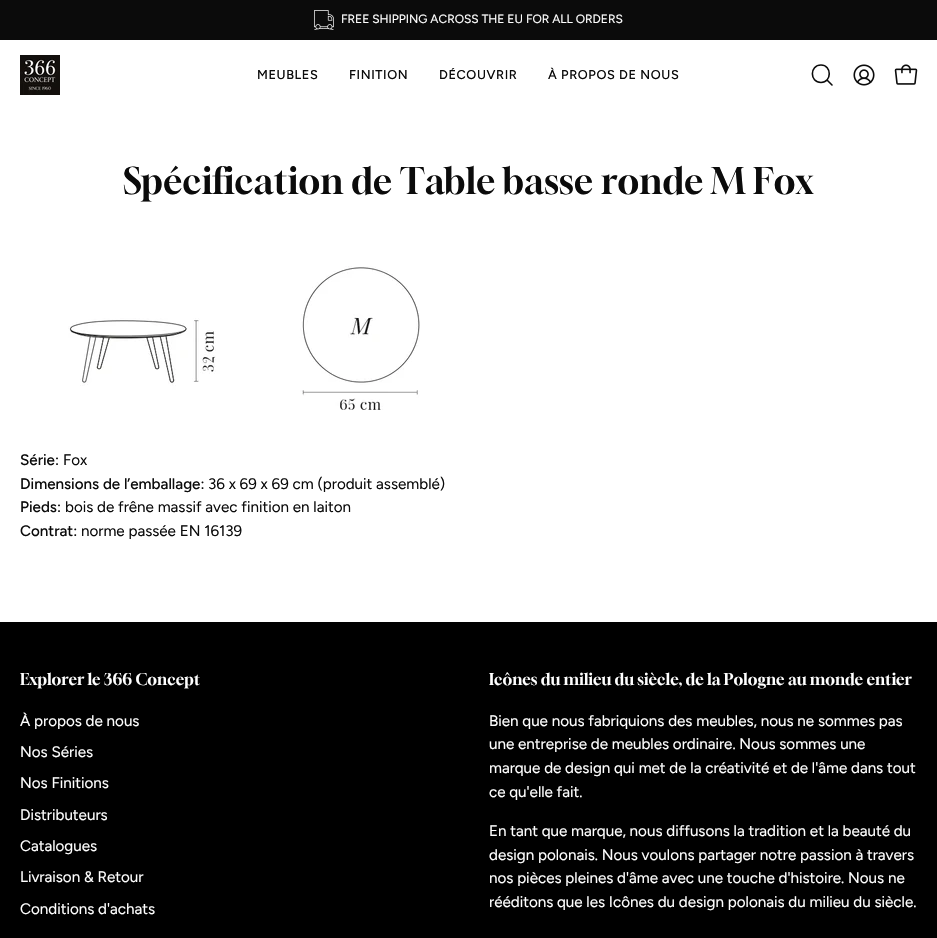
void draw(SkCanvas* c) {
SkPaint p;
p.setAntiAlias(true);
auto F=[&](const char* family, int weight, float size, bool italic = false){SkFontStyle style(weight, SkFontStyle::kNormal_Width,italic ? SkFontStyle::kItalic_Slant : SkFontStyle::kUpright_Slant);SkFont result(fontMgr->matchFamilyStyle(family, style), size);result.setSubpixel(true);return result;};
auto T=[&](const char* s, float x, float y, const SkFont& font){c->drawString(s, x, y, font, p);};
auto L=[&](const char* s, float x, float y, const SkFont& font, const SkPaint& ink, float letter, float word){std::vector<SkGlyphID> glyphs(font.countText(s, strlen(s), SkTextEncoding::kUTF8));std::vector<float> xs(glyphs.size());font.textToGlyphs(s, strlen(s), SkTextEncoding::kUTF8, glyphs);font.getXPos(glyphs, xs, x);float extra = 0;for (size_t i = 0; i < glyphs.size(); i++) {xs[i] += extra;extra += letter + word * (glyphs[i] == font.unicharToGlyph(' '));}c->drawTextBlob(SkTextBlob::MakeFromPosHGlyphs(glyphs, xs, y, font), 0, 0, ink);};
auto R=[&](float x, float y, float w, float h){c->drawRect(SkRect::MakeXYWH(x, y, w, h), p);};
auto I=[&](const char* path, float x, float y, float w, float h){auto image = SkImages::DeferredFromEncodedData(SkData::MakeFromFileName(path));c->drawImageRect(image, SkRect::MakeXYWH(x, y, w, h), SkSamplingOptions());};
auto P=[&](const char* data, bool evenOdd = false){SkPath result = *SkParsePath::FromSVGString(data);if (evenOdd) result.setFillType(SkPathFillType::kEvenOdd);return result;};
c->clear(0xffffffff);
p.setColor(0xff0b0b0b);
R(0,0,937,40);
I("1.png",314,10,20,20);
auto f1 = F("Figtree",400,12);
p.setColor(0xffffffff);
T("FREE SHIPPING ACROSS THE EU FOR ALL ORDERS",341,23,f1);
I("2.png",20,55,40,40);
auto f2 = F("Figtree",500,12.75);
p.setColor(0xff0b0b0b);
L("MEUBLES",257,79,f2,p,.6,0);
L("FINITION",349,79,f2,p,.6,0);
L("DÉCOUVRIR",439,79,f2,p,.6,0);
L("À PROPOS DE NOUS",548,79,f2,p,.6,0);
p.setStroke(true);
p.setStrokeWidth(1.6);
p.setStrokeCap(SkPaint::kRound_Cap);
p.setStrokeJoin(SkPaint::kRound_Join);
c->drawPath(P("M821 82.5c11 0 11-17.5 0-17.5c-11.5 0-11.5 17.5 0 17.5zm6-2.5l5 5"),p);
I("3.png",853,64,22,22);
I("4.png",894,64,24,21);
auto f3 = F("Gloock",400,36);
p.setStroke(false);
T("Spécification de Table basse ronde M Fox",123,194,f3);
I("5.png",68,266,352,144);
auto f4 = F("Figtree",500,15.2);
T("Série:",20,465,f4);
auto f5 = F("Figtree",400,15.2);
T("Fox",63,465,f5);
T("Dimensions de l’emballage:",20,489,f4);
T("36 x 69 x 69 cm (produit assemblé)",208,489,f5);
T("Pieds:",20,512,f4);
T("bois de frêne massif avec finition en laiton",65,512,f5);
T("Contrat:",20,536,f4);
T("norme passée EN 16139",81,536,f5);
p.setColor(0xff000000);
R(0,622,937,316);
auto f6 = F("Gloock",400,15.85);
p.setColor(0xffffffff);
T("Explorer le 366 Concept",20,685,f6);
T("À propos de nous",20,726,f5);
T("Nos Séries",20,757,f5);
T("Nos Finitions",20,788,f5);
T("Distributeurs",20,820,f5);
T("Catalogues",20,851,f5);
T("Livraison & Retour",20,882,f5);
T("Conditions d'achats",20,914,f5);
T("Icônes du milieu du siècle, de la Pologne au monde entier",489,685,f6);
T("Bien que nous fabriquions des meubles, nous ne sommes pas",489,726,f5);
T("une entreprise de meubles ordinaire. Nous sommes une",489,749,f5);
T("marque de design qui met de la créativité et de l'âme dans tout",489,773,f5);
T("ce qu'elle fait.",489,797,f5);
T("En tant que marque, nous diffusons la tradition et la beauté du",489,836,f5);
T("design polonais. Nous voulons partager notre passion à travers",489,860,f5);
T("nos pièces pleines d'âme avec une touche d'histoire. Nous ne",489,883,f5);
T("rééditons que les Icônes du design polonais du milieu du siècle.",489,907,f5);
}
